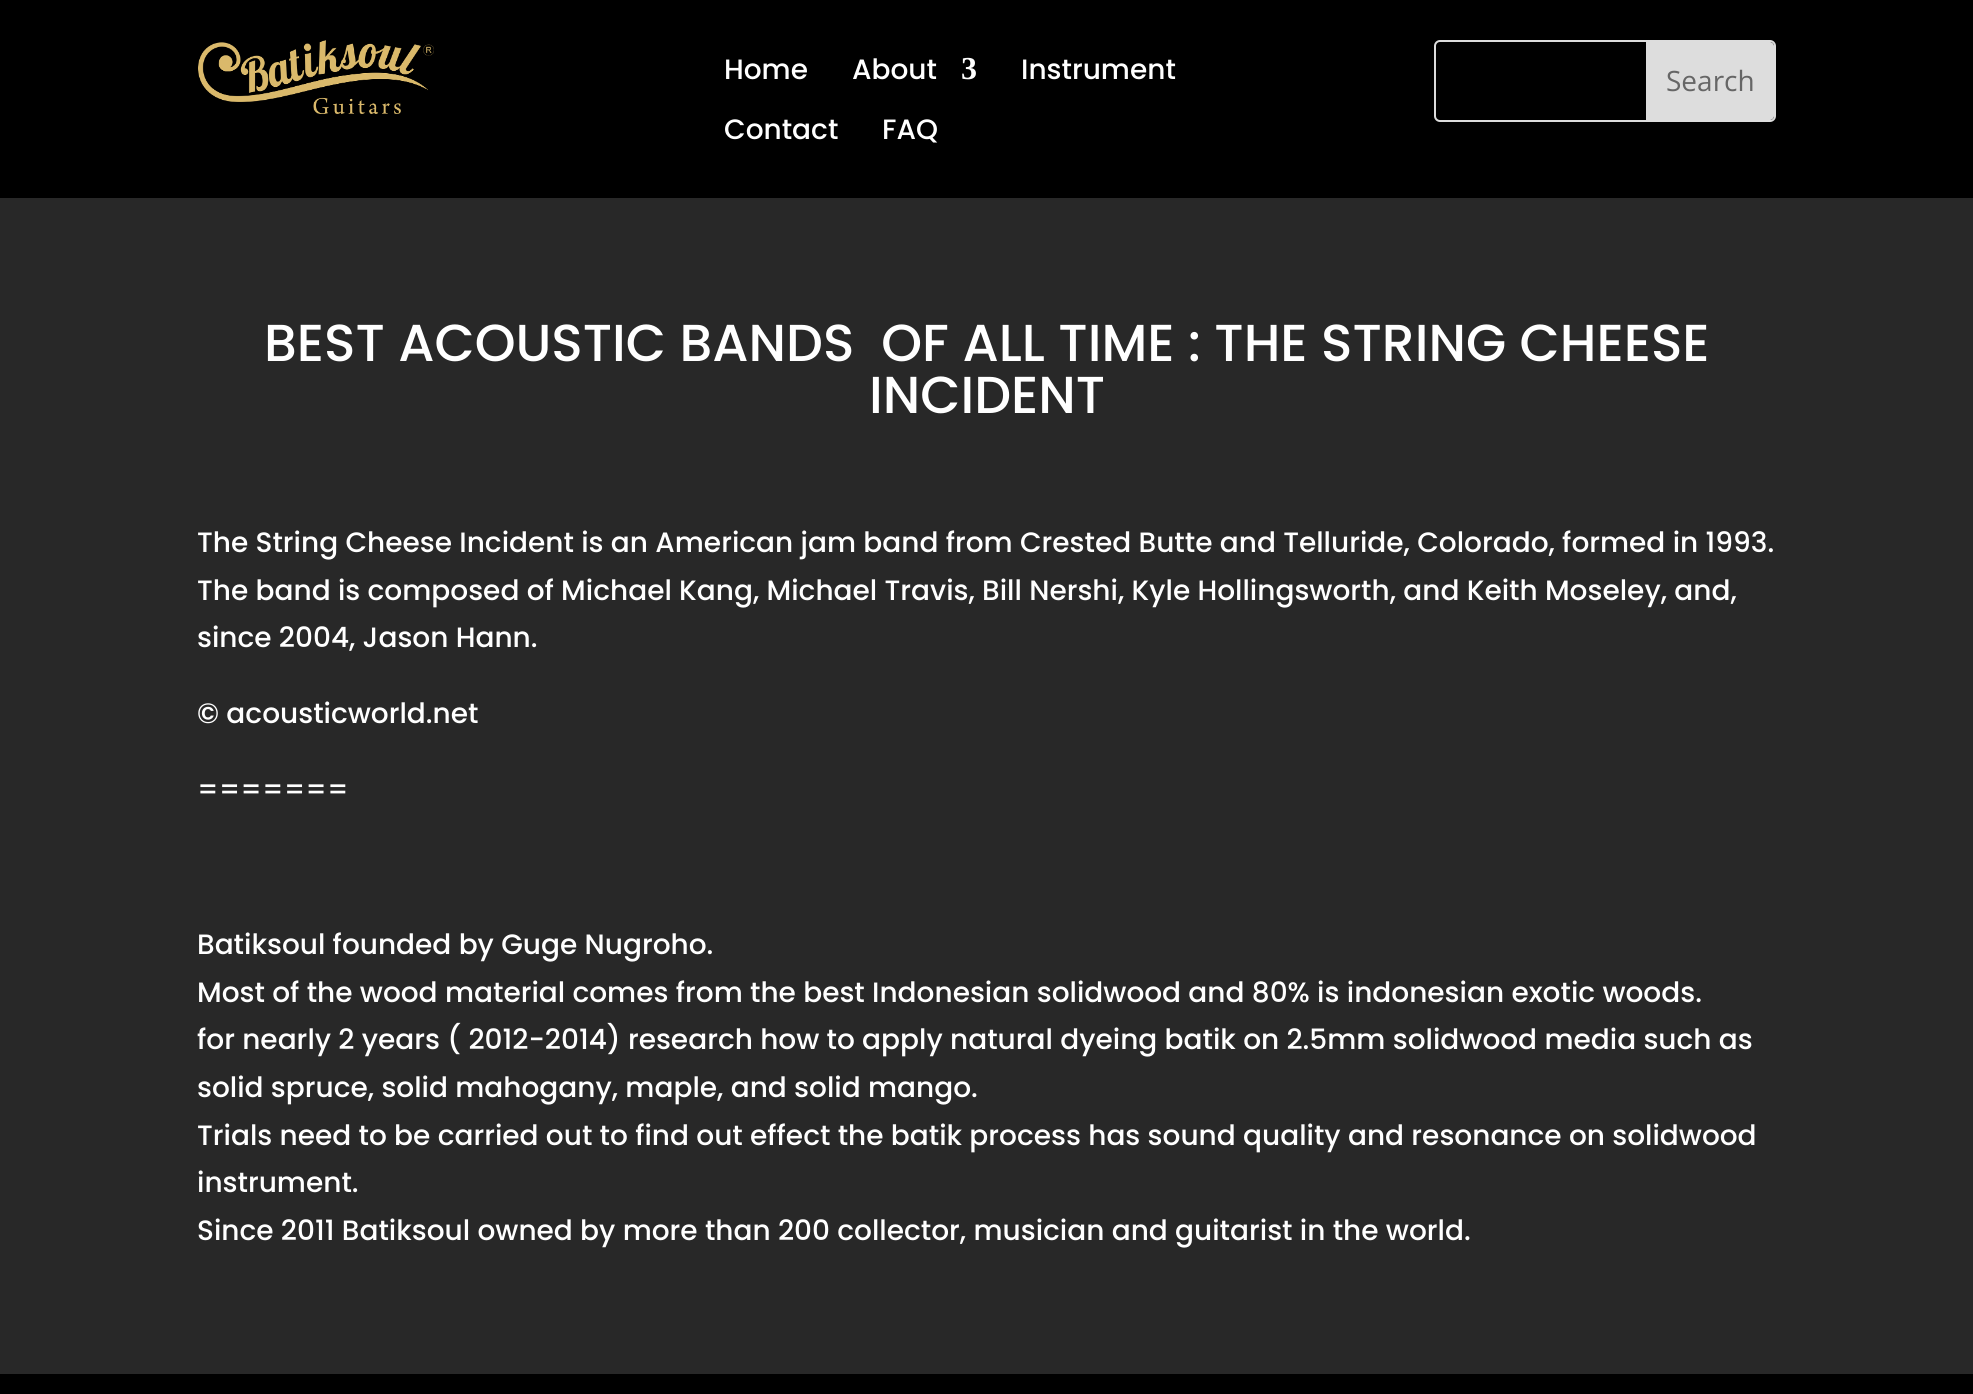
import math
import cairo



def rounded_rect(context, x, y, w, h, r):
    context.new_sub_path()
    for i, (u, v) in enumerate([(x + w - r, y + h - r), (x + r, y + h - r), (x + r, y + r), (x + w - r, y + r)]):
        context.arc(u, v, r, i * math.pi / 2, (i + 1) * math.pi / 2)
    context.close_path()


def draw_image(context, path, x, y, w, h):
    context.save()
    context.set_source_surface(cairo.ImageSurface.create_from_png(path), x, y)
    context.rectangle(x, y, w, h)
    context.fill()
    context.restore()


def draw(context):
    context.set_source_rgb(40 / 255, 40 / 255, 40 / 255)
    context.paint()
    context.set_source_rgb(0, 0, 0)
    context.rectangle(0, 0, 1973, 198)
    context.fill()
    draw_image(context, "images/1.png", 198, 40, 236, 74)
    rounded_rect(context, 1435, 41, 340, 80, 5)
    context.set_source_rgb(221 / 255, 221 / 255, 221 / 255)
    context.stroke()
    context.new_path()
    context.move_to(1646, 42)
    context.line_to(1770, 42)
    context.curve_to(1772, 42, 1774, 44, 1774, 46)
    context.line_to(1774, 116)
    context.curve_to(1774, 118, 1772, 120, 1770, 120)
    context.line_to(1646, 120)
    context.close_path()
    context.fill()
    context.set_source_rgb(0, 0, 0)
    context.rectangle(0, 1374, 1973, 20)
    context.fill()
    context.select_font_face("Poppins Medium")
    context.set_font_size(28)
    context.set_source_rgb(1, 1, 1)
    context.move_to(724, 79)
    context.show_text("Home")
    context.move_to(852, 79)
    context.show_text("About")
    context.select_font_face("Liberation Serif", cairo.FontSlant.NORMAL, cairo.FontWeight.BOLD)
    context.set_font_size(32)
    context.move_to(961, 79)
    context.show_text("3")
    context.select_font_face("Poppins Medium")
    context.set_font_size(28)
    context.move_to(1021, 79)
    context.show_text("Instrument")
    context.move_to(724, 139)
    context.show_text("Contact")
    context.move_to(882, 139)
    context.show_text("FAQ")
    context.select_font_face("Open Sans")
    context.set_source_rgb(102 / 255, 102 / 255, 102 / 255)
    context.move_to(1666, 91)
    context.show_text("Search")
    context.select_font_face("Poppins Medium")
    context.set_font_size(52)
    context.set_source_rgb(1, 1, 1)
    context.move_to(264, 361)
    context.show_text("BEST ACOUSTIC BANDS  OF ALL TIME : THE STRING CHEESE")
    context.move_to(869, 413)
    context.show_text("INCIDENT")
    context.set_font_size(28)
    context.move_to(197, 552)
    context.show_text("The String Cheese Incident is an American jam band from Crested Butte and Telluride, Colorado, formed in 1993.")
    context.move_to(197, 600)
    context.show_text("The band is composed of Michael Kang, Michael Travis, Bill Nershi, Kyle Hollingsworth, and Keith Moseley, and,")
    context.move_to(197, 647)
    context.show_text("since 2004, Jason Hann.")
    context.move_to(197, 723)
    context.show_text("© acousticworld.net")
    context.move_to(197, 799)
    context.show_text("=======")
    context.move_to(197, 954)
    context.show_text("Batiksoul founded by Guge Nugroho.")
    context.move_to(197, 1002)
    context.show_text("Most of the wood material comes from the best Indonesian solidwood and 80% is indonesian exotic woods.")
    context.move_to(197, 1049)
    context.show_text("for nearly 2 years ( 2012-2014) research how to apply natural dyeing batik on 2.5mm solidwood media such as")
    context.move_to(197, 1097)
    context.show_text("solid spruce, solid mahogany, maple, and solid mango.")
    context.move_to(197, 1145)
    context.show_text("Trials need to be carried out to find out effect the batik process has sound quality and resonance on solidwood")
    context.move_to(197, 1192)
    context.show_text("instrument.")
    context.move_to(197, 1240)
    context.show_text("Since 2011 Batiksoul owned by more than 200 collector, musician and guitarist in the world.")


surface = cairo.ImageSurface(cairo.Format.RGB24, 1973, 1394)
context = cairo.Context(surface)
options = cairo.FontOptions()
options.set_hint_metrics(cairo.HintMetrics.OFF)
options.set_hint_style(cairo.HintStyle.NONE)
context.set_font_options(options)
context.set_miter_limit(4)
draw(context)
surface.write_to_png("out.png")
